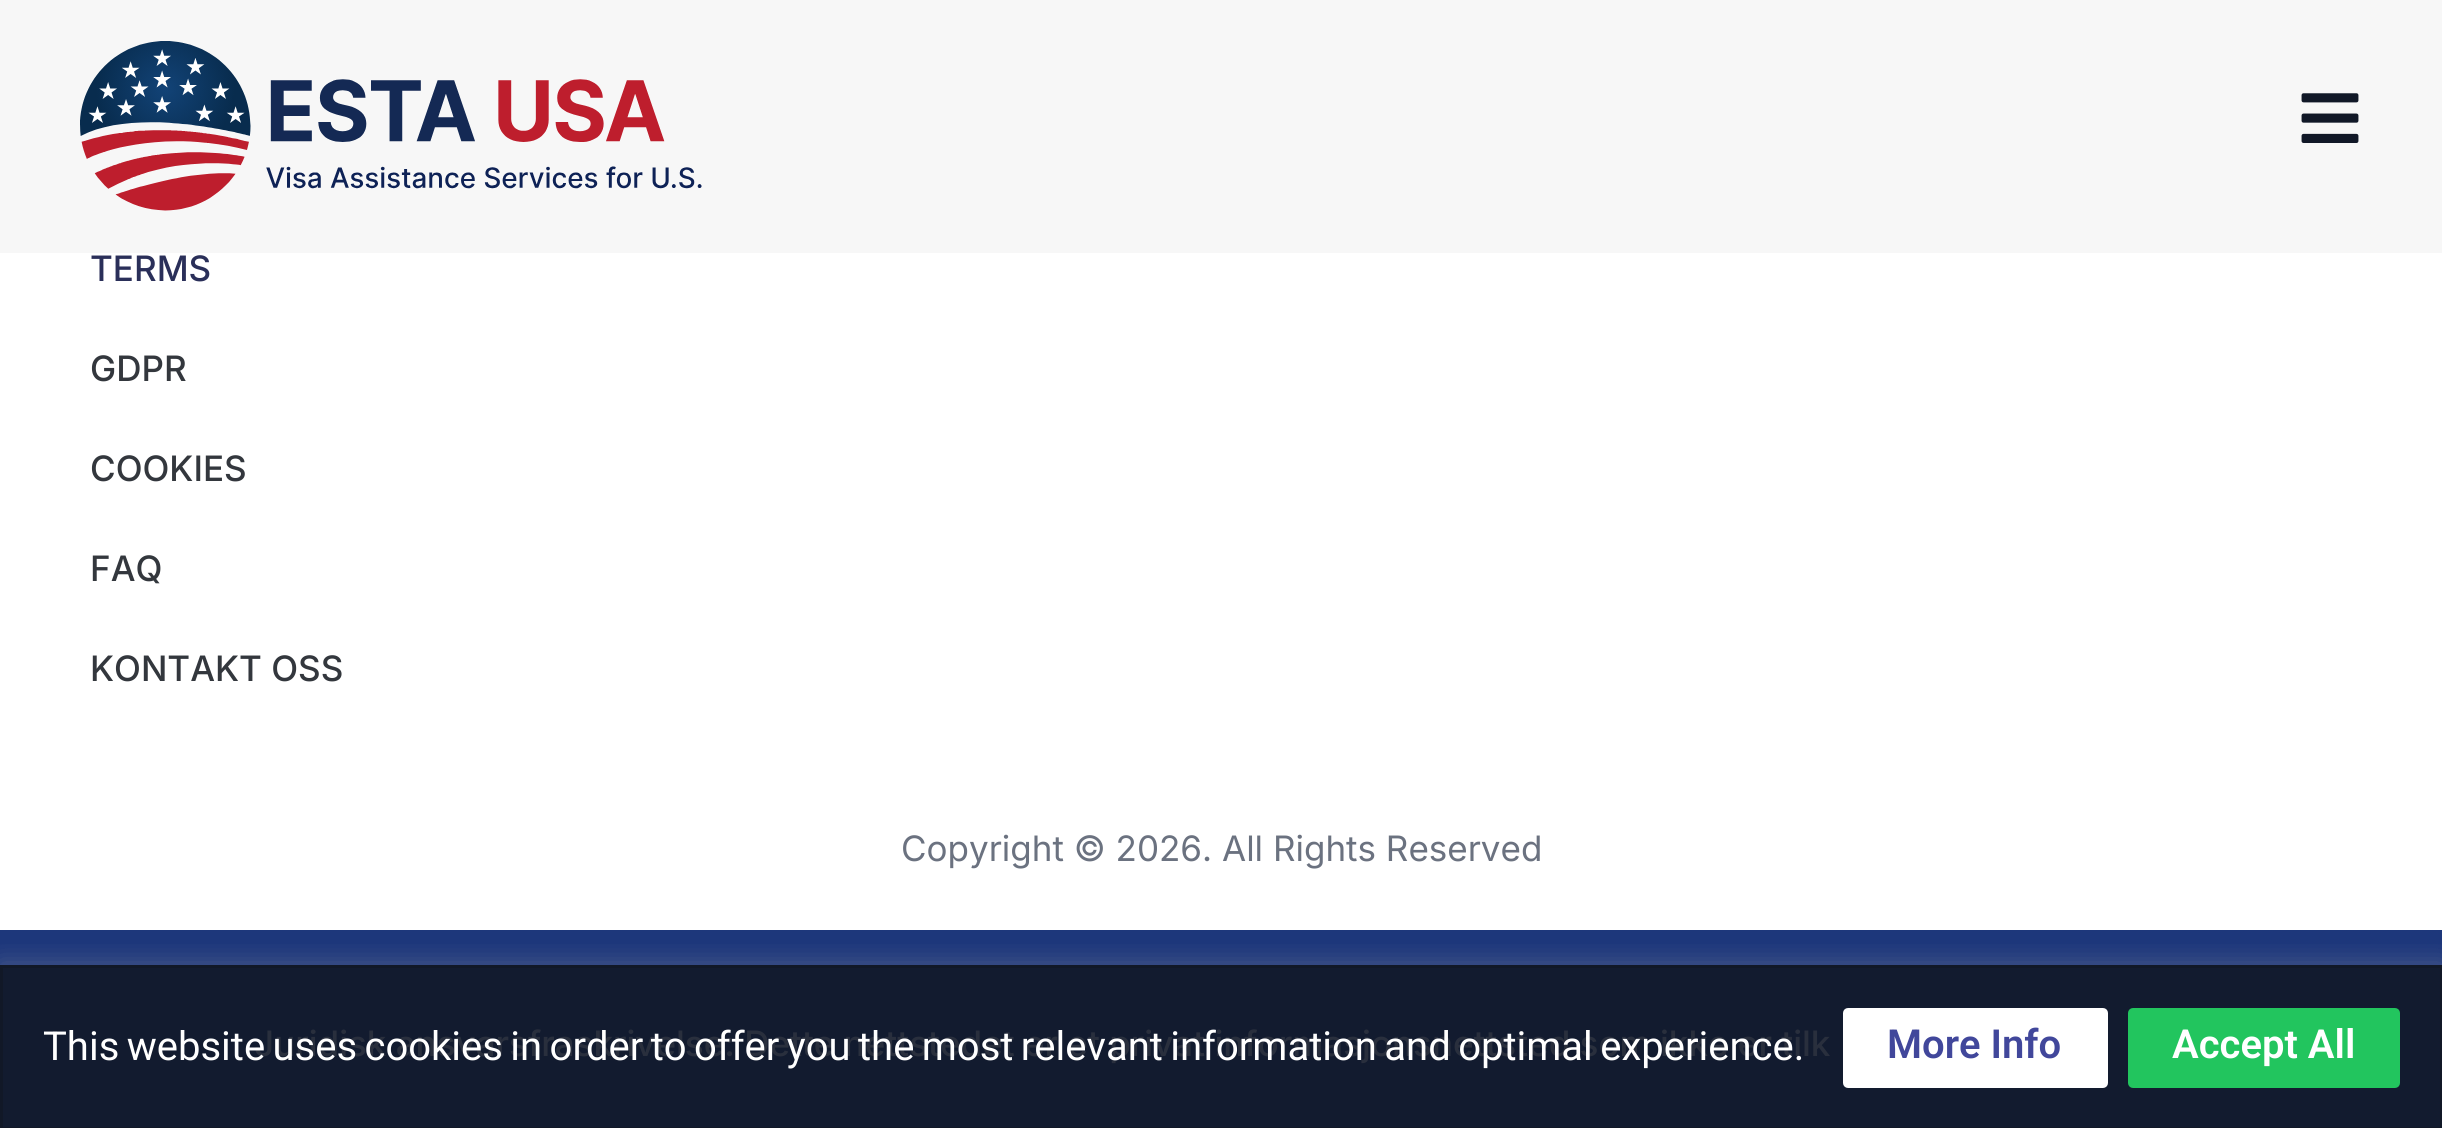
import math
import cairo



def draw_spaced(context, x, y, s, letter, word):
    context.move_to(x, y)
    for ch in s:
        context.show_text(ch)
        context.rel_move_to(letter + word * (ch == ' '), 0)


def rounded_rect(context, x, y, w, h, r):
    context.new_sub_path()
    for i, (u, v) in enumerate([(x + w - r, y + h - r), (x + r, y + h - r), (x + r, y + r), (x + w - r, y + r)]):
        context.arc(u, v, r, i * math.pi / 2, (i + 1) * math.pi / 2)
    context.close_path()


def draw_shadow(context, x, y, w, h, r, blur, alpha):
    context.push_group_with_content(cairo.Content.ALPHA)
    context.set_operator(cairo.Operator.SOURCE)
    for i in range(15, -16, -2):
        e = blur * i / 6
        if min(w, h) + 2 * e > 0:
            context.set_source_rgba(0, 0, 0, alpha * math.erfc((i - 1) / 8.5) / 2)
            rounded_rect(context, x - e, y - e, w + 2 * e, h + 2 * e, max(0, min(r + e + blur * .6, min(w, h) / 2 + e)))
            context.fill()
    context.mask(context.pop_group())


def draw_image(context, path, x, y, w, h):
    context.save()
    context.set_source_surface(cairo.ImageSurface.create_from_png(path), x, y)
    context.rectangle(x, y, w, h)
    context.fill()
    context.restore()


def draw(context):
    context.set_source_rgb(1, 1, 1)
    context.paint()
    context.set_source_rgb(247 / 255, 247 / 255, 247 / 255)
    context.rectangle(0, 0, 2442, 253)
    context.fill()
    draw_image(context, "images/1.png", 80, 41, 622, 170)
    draw_image(context, "images/2.png", 2301, 93, 58, 50)
    context.set_source_rgb(29 / 255, 55 / 255, 123 / 255)
    context.rectangle(0, 930, 2442, 35)
    context.fill()
    context.set_source_rgb(18 / 255, 27 / 255, 47 / 255)
    context.rectangle(3, 968, 2437, 159)
    context.fill()
    context.save()
    context.rectangle(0, 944, 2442, 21)
    context.clip()
    context.set_source_rgb(172 / 255, 171 / 255, 171 / 255)
    draw_shadow(context, 0, 963, 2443, 165, 0, 12.5, 0.3)
    context.restore()
    context.rectangle(1.5, 966.5, 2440, 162)
    context.set_source_rgb(17 / 255, 24 / 255, 39 / 255)
    context.set_line_width(3)
    context.stroke()
    context.set_source_rgb(1, 1, 1)
    rounded_rect(context, 1845.5, 1010.5, 260, 75, 2.5)
    context.fill_preserve()
    context.set_line_width(5)
    context.stroke()
    context.set_source_rgb(34 / 255, 197 / 255, 94 / 255)
    rounded_rect(context, 2130.5, 1010.5, 267, 75, 2.5)
    context.fill_preserve()
    context.stroke()
    context.select_font_face("Inter Medium")
    context.set_font_size(35)
    context.set_source_rgb(42 / 255, 47 / 255, 89 / 255)
    context.move_to(90, 281)
    context.show_text("TERMS")
    context.set_source_rgb(51 / 255, 55 / 255, 61 / 255)
    context.move_to(90, 381)
    context.show_text("GDPR")
    context.move_to(90, 481)
    context.show_text("COOKIES")
    context.move_to(90, 581)
    context.show_text("FAQ")
    context.move_to(90, 681)
    context.show_text("KONTAKT OSS")
    context.select_font_face("Inter")
    context.set_source_rgb(107 / 255, 114 / 255, 128 / 255)
    context.move_to(901, 861)
    context.show_text("Copyright © 2026. All Rights Reserved")
    context.select_font_face("Inter Medium")
    context.set_source_rgb(41 / 255, 47 / 255, 61 / 255)
    context.move_to(254, 1056)
    context.show_text("Juridisk ansvarsfraskrivelse: Dette nettstedet er et privat informasjonsnettsted som ikke er tilk")
    context.select_font_face("Roboto")
    context.set_font_size(40)
    context.set_source_rgb(1, 1, 1)
    draw_spaced(context, 43, 1060, "This website uses cookies in order to offer you the most relevant information and optimal experience.", 0, -2.5)
    context.select_font_face("Roboto SemiBold")
    context.set_source_rgb(65 / 255, 71 / 255, 155 / 255)
    context.move_to(1887, 1058)
    context.show_text("More Info")
    context.set_source_rgb(1, 1, 1)
    context.move_to(2172, 1058)
    context.show_text("Accept All")


surface = cairo.ImageSurface(cairo.Format.RGB24, 2442, 1128)
context = cairo.Context(surface)
options = cairo.FontOptions()
options.set_hint_metrics(cairo.HintMetrics.OFF)
options.set_hint_style(cairo.HintStyle.NONE)
context.set_font_options(options)
context.set_miter_limit(4)
draw(context)
surface.write_to_png("out.png")
